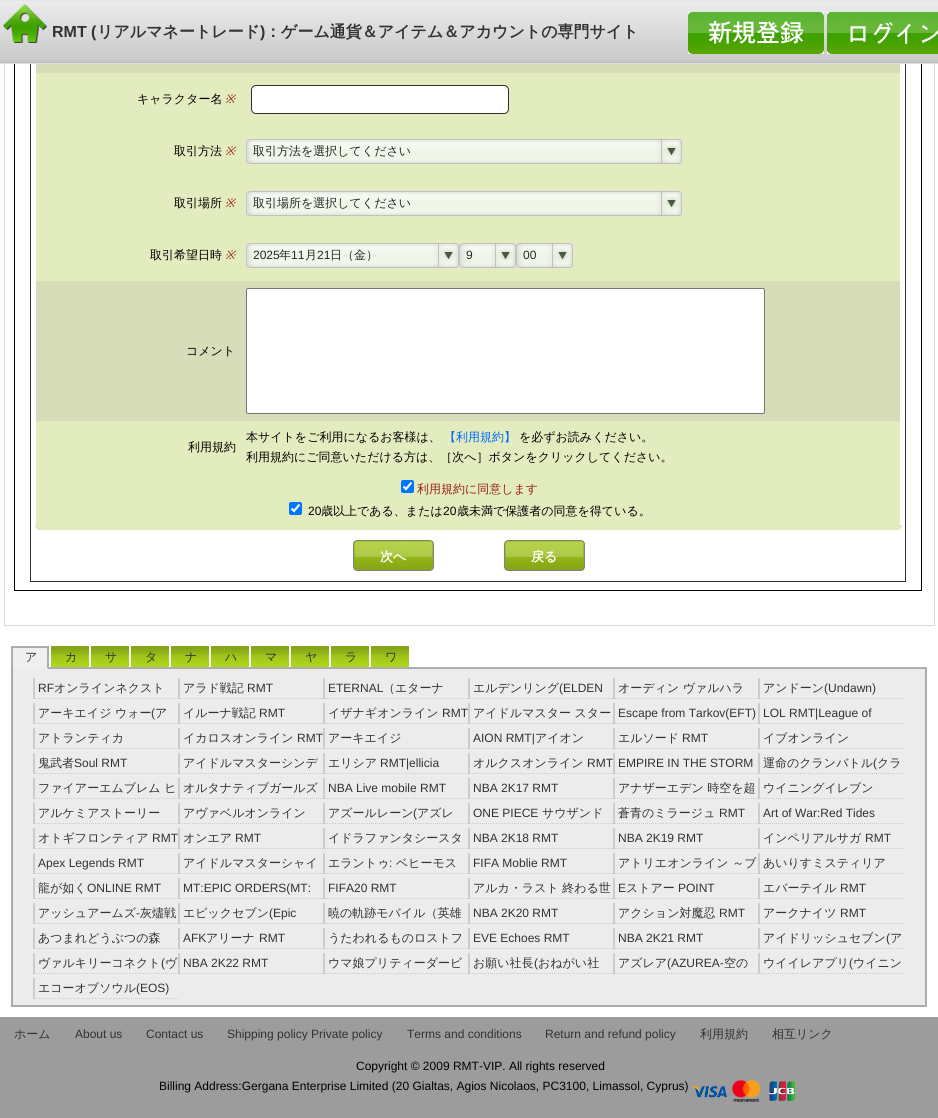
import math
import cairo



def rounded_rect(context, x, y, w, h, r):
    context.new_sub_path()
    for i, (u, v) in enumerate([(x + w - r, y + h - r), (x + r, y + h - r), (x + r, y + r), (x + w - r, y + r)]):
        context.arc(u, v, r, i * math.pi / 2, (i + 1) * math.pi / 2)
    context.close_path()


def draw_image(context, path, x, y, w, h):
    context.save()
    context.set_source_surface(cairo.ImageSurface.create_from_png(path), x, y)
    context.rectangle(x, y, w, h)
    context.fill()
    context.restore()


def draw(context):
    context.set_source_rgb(1, 1, 1)
    context.paint()
    context.rectangle(4.5, -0.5, 930, 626)
    context.set_source_rgb(216 / 255, 216 / 255, 216 / 255)
    context.set_line_width(1)
    context.stroke()
    context.rectangle(14.5, -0.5, 907, 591)
    context.set_source_rgb(0, 0, 0)
    context.stroke()
    context.rectangle(30.5, -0.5, 875, 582)
    context.set_source_rgb(50 / 255, 50 / 255, 50 / 255)
    context.stroke()
    draw_image(context, "images/1.png", 0, 0, 938, 64)
    draw_image(context, "images/2.png", 3, 4, 44, 39)
    draw_image(context, "images/3.png", 688, 12, 136, 42)
    draw_image(context, "images/4.png", 827, 12, 111, 42)
    context.set_source_rgb(214 / 255, 221 / 255, 184 / 255)
    context.rectangle(36, 64, 864, 9)
    context.fill()
    context.set_source_rgb(226 / 255, 236 / 255, 190 / 255)
    context.rectangle(36, 73, 864, 208)
    context.fill()
    context.set_source_rgb(1, 1, 1)
    rounded_rect(context, 251.5, 85.5, 257, 28, 4.5)
    context.fill_preserve()
    context.set_source_rgb(50 / 255, 50 / 255, 50 / 255)
    context.stroke()
    draw_image(context, "images/5.png", 656, 139, 26, 25)
    draw_image(context, "images/6.png", 246, 139, 410, 25)
    draw_image(context, "images/5.png", 656, 191, 26, 25)
    draw_image(context, "images/6.png", 246, 191, 410, 25)
    draw_image(context, "images/5.png", 433, 243, 26, 25)
    draw_image(context, "images/7.png", 246, 243, 187, 25)
    draw_image(context, "images/5.png", 490, 243, 26, 25)
    draw_image(context, "images/8.png", 459, 243, 31, 25)
    draw_image(context, "images/5.png", 547, 243, 26, 25)
    draw_image(context, "images/8.png", 516, 243, 31, 25)
    context.set_source_rgb(214 / 255, 221 / 255, 184 / 255)
    context.rectangle(36, 281, 864, 140)
    context.fill()
    context.set_source_rgb(1, 1, 1)
    rounded_rect(context, 246.5, 288.5, 518, 125, 1.5)
    context.fill_preserve()
    context.set_source_rgb(118 / 255, 118 / 255, 118 / 255)
    context.stroke()
    context.set_source_rgb(226 / 255, 236 / 255, 190 / 255)
    context.rectangle(36, 421, 864, 104)
    context.fill()
    context.set_source_rgb(0, 117 / 255, 1)
    rounded_rect(context, 401, 480, 13, 13, 2)
    context.fill()
    context.new_path()
    context.move_to(403.5, 486.5)
    context.line_to(406, 489)
    context.line_to(411.5, 482.5)
    context.set_source_rgb(1, 1, 1)
    context.set_line_width(2.1)
    context.stroke()
    context.set_source_rgb(0, 117 / 255, 1)
    rounded_rect(context, 289, 502, 13, 13, 2)
    context.fill()
    context.new_path()
    context.move_to(291.5, 508.5)
    context.line_to(294, 511)
    context.line_to(299.5, 504.5)
    context.set_source_rgb(1, 1, 1)
    context.stroke()
    draw_image(context, "images/9.png", 35, 525, 867, 5)
    draw_image(context, "images/10.png", 353, 540, 81, 31)
    draw_image(context, "images/10.png", 504, 540, 81, 31)
    draw_image(context, "images/11.png", 49, 646, 878, 23)
    draw_image(context, "images/12.png", 11, 646, 38, 23)
    draw_image(context, "images/13.png", 51, 646, 38, 22)
    draw_image(context, "images/13.png", 91, 646, 38, 22)
    draw_image(context, "images/13.png", 131, 646, 38, 22)
    draw_image(context, "images/13.png", 171, 646, 38, 22)
    draw_image(context, "images/13.png", 211, 646, 38, 22)
    draw_image(context, "images/13.png", 251, 646, 38, 22)
    draw_image(context, "images/13.png", 291, 646, 38, 22)
    draw_image(context, "images/13.png", 331, 646, 38, 22)
    draw_image(context, "images/13.png", 371, 646, 38, 22)
    context.set_source_rgb(236 / 255, 236 / 255, 236 / 255)
    context.rectangle(13, 669, 912, 336)
    context.fill()
    context.set_source_rgb(171 / 255, 171 / 255, 171 / 255)
    context.rectangle(925, 669, 2, 338)
    context.fill()
    context.rectangle(11, 1005, 916, 2)
    context.fill()
    context.rectangle(11, 669, 2, 338)
    context.fill()
    context.new_path()
    context.move_to(33, 698.5)
    context.line_to(178, 698.5)
    context.set_source_rgb(204 / 255, 204 / 255, 204 / 255)
    context.set_line_width(1)
    context.set_dash([1, 1])
    context.stroke()
    context.rectangle(33, 678, 2, 21)
    context.fill()
    context.new_path()
    context.move_to(178, 698.5)
    context.line_to(323, 698.5)
    context.stroke()
    context.rectangle(178, 678, 2, 21)
    context.fill()
    context.new_path()
    context.move_to(323, 698.5)
    context.line_to(468, 698.5)
    context.stroke()
    context.rectangle(323, 678, 2, 21)
    context.fill()
    context.new_path()
    context.move_to(468, 698.5)
    context.line_to(613, 698.5)
    context.stroke()
    context.rectangle(468, 678, 2, 21)
    context.fill()
    context.new_path()
    context.move_to(613, 698.5)
    context.line_to(758, 698.5)
    context.stroke()
    context.rectangle(613, 678, 2, 21)
    context.fill()
    context.new_path()
    context.move_to(758, 698.5)
    context.line_to(903, 698.5)
    context.stroke()
    context.rectangle(758, 678, 2, 21)
    context.fill()
    context.new_path()
    context.move_to(33, 723.5)
    context.line_to(178, 723.5)
    context.stroke()
    context.rectangle(33, 703, 2, 21)
    context.fill()
    context.new_path()
    context.move_to(178, 723.5)
    context.line_to(323, 723.5)
    context.stroke()
    context.rectangle(178, 703, 2, 21)
    context.fill()
    context.new_path()
    context.move_to(323, 723.5)
    context.line_to(468, 723.5)
    context.stroke()
    context.rectangle(323, 703, 2, 21)
    context.fill()
    context.new_path()
    context.move_to(468, 723.5)
    context.line_to(613, 723.5)
    context.stroke()
    context.rectangle(468, 703, 2, 21)
    context.fill()
    context.new_path()
    context.move_to(613, 723.5)
    context.line_to(758, 723.5)
    context.stroke()
    context.rectangle(613, 703, 2, 21)
    context.fill()
    context.new_path()
    context.move_to(758, 723.5)
    context.line_to(903, 723.5)
    context.stroke()
    context.rectangle(758, 703, 2, 21)
    context.fill()
    context.new_path()
    context.move_to(33, 748.5)
    context.line_to(178, 748.5)
    context.stroke()
    context.rectangle(33, 728, 2, 21)
    context.fill()
    context.new_path()
    context.move_to(178, 748.5)
    context.line_to(323, 748.5)
    context.stroke()
    context.rectangle(178, 728, 2, 21)
    context.fill()
    context.new_path()
    context.move_to(323, 748.5)
    context.line_to(468, 748.5)
    context.stroke()
    context.rectangle(323, 728, 2, 21)
    context.fill()
    context.new_path()
    context.move_to(468, 748.5)
    context.line_to(613, 748.5)
    context.stroke()
    context.rectangle(468, 728, 2, 21)
    context.fill()
    context.new_path()
    context.move_to(613, 748.5)
    context.line_to(758, 748.5)
    context.stroke()
    context.rectangle(613, 728, 2, 21)
    context.fill()
    context.new_path()
    context.move_to(758, 748.5)
    context.line_to(903, 748.5)
    context.stroke()
    context.rectangle(758, 728, 2, 21)
    context.fill()
    context.new_path()
    context.move_to(33, 773.5)
    context.line_to(178, 773.5)
    context.stroke()
    context.rectangle(33, 753, 2, 21)
    context.fill()
    context.new_path()
    context.move_to(178, 773.5)
    context.line_to(323, 773.5)
    context.stroke()
    context.rectangle(178, 753, 2, 21)
    context.fill()
    context.new_path()
    context.move_to(323, 773.5)
    context.line_to(468, 773.5)
    context.stroke()
    context.rectangle(323, 753, 2, 21)
    context.fill()
    context.new_path()
    context.move_to(468, 773.5)
    context.line_to(613, 773.5)
    context.stroke()
    context.rectangle(468, 753, 2, 21)
    context.fill()
    context.new_path()
    context.move_to(613, 773.5)
    context.line_to(758, 773.5)
    context.stroke()
    context.rectangle(613, 753, 2, 21)
    context.fill()
    context.new_path()
    context.move_to(758, 773.5)
    context.line_to(903, 773.5)
    context.stroke()
    context.rectangle(758, 753, 2, 21)
    context.fill()
    context.new_path()
    context.move_to(33, 798.5)
    context.line_to(178, 798.5)
    context.stroke()
    context.rectangle(33, 778, 2, 21)
    context.fill()
    context.new_path()
    context.move_to(178, 798.5)
    context.line_to(323, 798.5)
    context.stroke()
    context.rectangle(178, 778, 2, 21)
    context.fill()
    context.new_path()
    context.move_to(323, 798.5)
    context.line_to(468, 798.5)
    context.stroke()
    context.rectangle(323, 778, 2, 21)
    context.fill()
    context.new_path()
    context.move_to(468, 798.5)
    context.line_to(613, 798.5)
    context.stroke()
    context.rectangle(468, 778, 2, 21)
    context.fill()
    context.new_path()
    context.move_to(613, 798.5)
    context.line_to(758, 798.5)
    context.stroke()
    context.rectangle(613, 778, 2, 21)
    context.fill()
    context.new_path()
    context.move_to(758, 798.5)
    context.line_to(903, 798.5)
    context.stroke()
    context.rectangle(758, 778, 2, 21)
    context.fill()
    context.new_path()
    context.move_to(33, 823.5)
    context.line_to(178, 823.5)
    context.stroke()
    context.rectangle(33, 803, 2, 21)
    context.fill()
    context.new_path()
    context.move_to(178, 823.5)
    context.line_to(323, 823.5)
    context.stroke()
    context.rectangle(178, 803, 2, 21)
    context.fill()
    context.new_path()
    context.move_to(323, 823.5)
    context.line_to(468, 823.5)
    context.stroke()
    context.rectangle(323, 803, 2, 21)
    context.fill()
    context.new_path()
    context.move_to(468, 823.5)
    context.line_to(613, 823.5)
    context.stroke()
    context.rectangle(468, 803, 2, 21)
    context.fill()
    context.new_path()
    context.move_to(613, 823.5)
    context.line_to(758, 823.5)
    context.stroke()
    context.rectangle(613, 803, 2, 21)
    context.fill()
    context.new_path()
    context.move_to(758, 823.5)
    context.line_to(903, 823.5)
    context.stroke()
    context.rectangle(758, 803, 2, 21)
    context.fill()
    context.new_path()
    context.move_to(33, 848.5)
    context.line_to(178, 848.5)
    context.stroke()
    context.rectangle(33, 828, 2, 21)
    context.fill()
    context.new_path()
    context.move_to(178, 848.5)
    context.line_to(323, 848.5)
    context.stroke()
    context.rectangle(178, 828, 2, 21)
    context.fill()
    context.new_path()
    context.move_to(323, 848.5)
    context.line_to(468, 848.5)
    context.stroke()
    context.rectangle(323, 828, 2, 21)
    context.fill()
    context.new_path()
    context.move_to(468, 848.5)
    context.line_to(613, 848.5)
    context.stroke()
    context.rectangle(468, 828, 2, 21)
    context.fill()
    context.new_path()
    context.move_to(613, 848.5)
    context.line_to(758, 848.5)
    context.stroke()
    context.rectangle(613, 828, 2, 21)
    context.fill()
    context.new_path()
    context.move_to(758, 848.5)
    context.line_to(903, 848.5)
    context.stroke()
    context.rectangle(758, 828, 2, 21)
    context.fill()
    context.new_path()
    context.move_to(33, 873.5)
    context.line_to(178, 873.5)
    context.stroke()
    context.rectangle(33, 853, 2, 21)
    context.fill()
    context.new_path()
    context.move_to(178, 873.5)
    context.line_to(323, 873.5)
    context.stroke()
    context.rectangle(178, 853, 2, 21)
    context.fill()
    context.new_path()
    context.move_to(323, 873.5)
    context.line_to(468, 873.5)
    context.stroke()
    context.rectangle(323, 853, 2, 21)
    context.fill()
    context.new_path()
    context.move_to(468, 873.5)
    context.line_to(613, 873.5)
    context.stroke()
    context.rectangle(468, 853, 2, 21)
    context.fill()
    context.new_path()
    context.move_to(613, 873.5)
    context.line_to(758, 873.5)
    context.stroke()
    context.rectangle(613, 853, 2, 21)
    context.fill()
    context.new_path()
    context.move_to(758, 873.5)
    context.line_to(903, 873.5)
    context.stroke()
    context.rectangle(758, 853, 2, 21)
    context.fill()
    context.new_path()
    context.move_to(33, 898.5)
    context.line_to(178, 898.5)
    context.stroke()
    context.rectangle(33, 878, 2, 21)
    context.fill()
    context.new_path()
    context.move_to(178, 898.5)
    context.line_to(323, 898.5)
    context.stroke()
    context.rectangle(178, 878, 2, 21)
    context.fill()
    context.new_path()
    context.move_to(323, 898.5)
    context.line_to(468, 898.5)
    context.stroke()
    context.rectangle(323, 878, 2, 21)
    context.fill()
    context.new_path()
    context.move_to(468, 898.5)
    context.line_to(613, 898.5)
    context.stroke()
    context.rectangle(468, 878, 2, 21)
    context.fill()
    context.new_path()
    context.move_to(613, 898.5)
    context.line_to(758, 898.5)
    context.stroke()
    context.rectangle(613, 878, 2, 21)
    context.fill()
    context.new_path()
    context.move_to(758, 898.5)
    context.line_to(903, 898.5)
    context.stroke()
    context.rectangle(758, 878, 2, 21)
    context.fill()
    context.new_path()
    context.move_to(33, 923.5)
    context.line_to(178, 923.5)
    context.stroke()
    context.rectangle(33, 903, 2, 21)
    context.fill()
    context.new_path()
    context.move_to(178, 923.5)
    context.line_to(323, 923.5)
    context.stroke()
    context.rectangle(178, 903, 2, 21)
    context.fill()
    context.new_path()
    context.move_to(323, 923.5)
    context.line_to(468, 923.5)
    context.stroke()
    context.rectangle(323, 903, 2, 21)
    context.fill()
    context.new_path()
    context.move_to(468, 923.5)
    context.line_to(613, 923.5)
    context.stroke()
    context.rectangle(468, 903, 2, 21)
    context.fill()
    context.new_path()
    context.move_to(613, 923.5)
    context.line_to(758, 923.5)
    context.stroke()
    context.rectangle(613, 903, 2, 21)
    context.fill()
    context.new_path()
    context.move_to(758, 923.5)
    context.line_to(903, 923.5)
    context.stroke()
    context.rectangle(758, 903, 2, 21)
    context.fill()
    context.new_path()
    context.move_to(33, 948.5)
    context.line_to(178, 948.5)
    context.stroke()
    context.rectangle(33, 928, 2, 21)
    context.fill()
    context.new_path()
    context.move_to(178, 948.5)
    context.line_to(323, 948.5)
    context.stroke()
    context.rectangle(178, 928, 2, 21)
    context.fill()
    context.new_path()
    context.move_to(323, 948.5)
    context.line_to(468, 948.5)
    context.stroke()
    context.rectangle(323, 928, 2, 21)
    context.fill()
    context.new_path()
    context.move_to(468, 948.5)
    context.line_to(613, 948.5)
    context.stroke()
    context.rectangle(468, 928, 2, 21)
    context.fill()
    context.new_path()
    context.move_to(613, 948.5)
    context.line_to(758, 948.5)
    context.stroke()
    context.rectangle(613, 928, 2, 21)
    context.fill()
    context.new_path()
    context.move_to(758, 948.5)
    context.line_to(903, 948.5)
    context.stroke()
    context.rectangle(758, 928, 2, 21)
    context.fill()
    context.new_path()
    context.move_to(33, 973.5)
    context.line_to(178, 973.5)
    context.stroke()
    context.rectangle(33, 953, 2, 21)
    context.fill()
    context.new_path()
    context.move_to(178, 973.5)
    context.line_to(323, 973.5)
    context.stroke()
    context.rectangle(178, 953, 2, 21)
    context.fill()
    context.new_path()
    context.move_to(323, 973.5)
    context.line_to(468, 973.5)
    context.stroke()
    context.rectangle(323, 953, 2, 21)
    context.fill()
    context.new_path()
    context.move_to(468, 973.5)
    context.line_to(613, 973.5)
    context.stroke()
    context.rectangle(468, 953, 2, 21)
    context.fill()
    context.new_path()
    context.move_to(613, 973.5)
    context.line_to(758, 973.5)
    context.stroke()
    context.rectangle(613, 953, 2, 21)
    context.fill()
    context.new_path()
    context.move_to(758, 973.5)
    context.line_to(903, 973.5)
    context.stroke()
    context.rectangle(758, 953, 2, 21)
    context.fill()
    context.new_path()
    context.move_to(33, 998.5)
    context.line_to(178, 998.5)
    context.stroke()
    context.rectangle(33, 978, 2, 21)
    context.fill()
    context.set_source_rgb(156 / 255, 156 / 255, 156 / 255)
    context.rectangle(0, 1017, 938, 101)
    context.fill()
    draw_image(context, "images/14.png", 692, 1086, 35, 12)
    draw_image(context, "images/15.png", 731, 1079, 30, 24)
    draw_image(context, "images/16.png", 769, 1081, 27, 20)
    context.select_font_face("Liberation Sans", cairo.FontSlant.NORMAL, cairo.FontWeight.BOLD)
    context.set_font_size(16)
    context.set_source_rgb(50 / 255, 50 / 255, 50 / 255)
    context.move_to(52, 37)
    context.show_text("RMT (")
    context.select_font_face("WenQuanYi Zen Hei", cairo.FontSlant.NORMAL, cairo.FontWeight.BOLD)
    context.move_to(97, 37)
    context.show_text("リアルマネートレード")
    context.select_font_face("Liberation Sans", cairo.FontSlant.NORMAL, cairo.FontWeight.BOLD)
    context.move_to(260, 37)
    context.show_text(")")
    context.select_font_face("WenQuanYi Zen Hei", cairo.FontSlant.NORMAL, cairo.FontWeight.BOLD)
    context.move_to(265, 37)
    context.show_text("：ゲーム通貨＆アイテム＆アカウントの専門サイト")
    context.select_font_face("WenQuanYi Zen Hei Medium")
    context.set_font_size(12)
    context.set_source_rgb(0, 0, 0)
    context.move_to(137, 103)
    context.show_text("キャラクター名")
    context.select_font_face("Noto Sans", cairo.FontSlant.ITALIC)
    context.set_source_rgb(154 / 255, 30 / 255, 24 / 255)
    context.move_to(225, 103)
    context.show_text("※")
    context.select_font_face("WenQuanYi Zen Hei Medium")
    context.set_source_rgb(0, 0, 0)
    context.move_to(174, 155)
    context.show_text("取引方法")
    context.select_font_face("Noto Sans", cairo.FontSlant.ITALIC)
    context.set_source_rgb(154 / 255, 30 / 255, 24 / 255)
    context.move_to(225, 155)
    context.show_text("※")
    context.select_font_face("WenQuanYi Zen Hei Medium")
    context.set_source_rgb(38 / 255, 38 / 255, 38 / 255)
    context.move_to(253, 155)
    context.show_text("取引方法を選択してください")
    context.set_source_rgb(0, 0, 0)
    context.move_to(174, 207)
    context.show_text("取引場所")
    context.select_font_face("Noto Sans", cairo.FontSlant.ITALIC)
    context.set_source_rgb(154 / 255, 30 / 255, 24 / 255)
    context.move_to(225, 207)
    context.show_text("※")
    context.select_font_face("WenQuanYi Zen Hei Medium")
    context.set_source_rgb(38 / 255, 38 / 255, 38 / 255)
    context.move_to(253, 207)
    context.show_text("取引場所を選択してください")
    context.set_source_rgb(0, 0, 0)
    context.move_to(150, 259)
    context.show_text("取引希望日時")
    context.select_font_face("Noto Sans", cairo.FontSlant.ITALIC)
    context.set_source_rgb(154 / 255, 30 / 255, 24 / 255)
    context.move_to(225, 259)
    context.show_text("※")
    context.select_font_face("Liberation Sans")
    context.set_source_rgb(38 / 255, 38 / 255, 38 / 255)
    context.move_to(253, 259)
    context.show_text("2025")
    context.select_font_face("WenQuanYi Zen Hei Medium")
    context.move_to(279, 259)
    context.show_text("年")
    context.select_font_face("Liberation Sans")
    context.move_to(291, 259)
    context.show_text("11")
    context.select_font_face("WenQuanYi Zen Hei Medium")
    context.move_to(305, 259)
    context.show_text("月")
    context.select_font_face("Liberation Sans")
    context.move_to(317, 259)
    context.show_text("21")
    context.select_font_face("WenQuanYi Zen Hei Medium")
    context.move_to(330, 259)
    context.show_text("日（金）")
    context.select_font_face("Liberation Sans")
    context.move_to(466, 259)
    context.show_text("9")
    context.move_to(523, 259)
    context.show_text("00")
    context.select_font_face("WenQuanYi Zen Hei Medium")
    context.set_source_rgb(0, 0, 0)
    context.move_to(186, 355)
    context.show_text("コメント")
    context.move_to(188, 451)
    context.show_text("利用規約")
    context.move_to(246, 441)
    context.show_text("本サイトをご利用になるお客様は、")
    context.set_source_rgb(0, 102 / 255, 1)
    context.move_to(444, 441)
    context.show_text("【利用規約】")
    context.set_source_rgb(0, 0, 0)
    context.move_to(519, 441)
    context.show_text("を必ずお読みください。")
    context.move_to(246, 461)
    context.show_text("利用規約にご同意いただける方は、［次へ］ボタンをクリックしてください。")
    context.set_source_rgb(154 / 255, 30 / 255, 24 / 255)
    context.move_to(417, 493)
    context.show_text("利用規約に同意します")
    context.select_font_face("Liberation Sans")
    context.set_source_rgb(0, 0, 0)
    context.move_to(308, 515)
    context.show_text("20")
    context.select_font_face("WenQuanYi Zen Hei Medium")
    context.move_to(321, 515)
    context.show_text("歳以上である、または")
    context.select_font_face("Liberation Sans")
    context.move_to(443, 515)
    context.show_text("20")
    context.select_font_face("WenQuanYi Zen Hei Medium")
    context.move_to(457, 515)
    context.show_text("歳未満で保護者の同意を得ている。")
    context.select_font_face("WenQuanYi Zen Hei", cairo.FontSlant.NORMAL, cairo.FontWeight.BOLD)
    context.set_font_size(13)
    context.set_source_rgb(1, 1, 1)
    context.move_to(380, 561)
    context.show_text("次へ")
    context.move_to(531, 561)
    context.show_text("戻る")
    context.select_font_face("WenQuanYi Zen Hei Medium")
    context.set_font_size(12)
    context.set_source_rgb(50 / 255, 50 / 255, 50 / 255)
    context.move_to(25, 661)
    context.show_text("ア")
    context.move_to(65, 661)
    context.show_text("カ")
    context.move_to(105, 661)
    context.show_text("サ")
    context.move_to(145, 661)
    context.show_text("タ")
    context.move_to(185, 661)
    context.show_text("ナ")
    context.move_to(225, 661)
    context.show_text("ハ")
    context.move_to(265, 661)
    context.show_text("マ")
    context.move_to(305, 661)
    context.show_text("ヤ")
    context.move_to(345, 661)
    context.show_text("ラ")
    context.move_to(385, 661)
    context.show_text("ワ")
    context.select_font_face("Liberation Sans")
    context.move_to(38, 692)
    context.show_text("RF")
    context.select_font_face("WenQuanYi Zen Hei Medium")
    context.move_to(54, 692)
    context.show_text("オンラインネクスト")
    context.move_to(183, 692)
    context.show_text("アラド戦記")
    context.select_font_face("Liberation Sans")
    context.move_to(247, 692)
    context.show_text("RMT")
    context.move_to(328, 692)
    context.show_text("ETERNAL")
    context.select_font_face("WenQuanYi Zen Hei Medium")
    context.move_to(383, 692)
    context.show_text("（エターナ")
    context.move_to(473, 692)
    context.show_text("エルデンリング")
    context.select_font_face("Liberation Sans")
    context.move_to(559, 692)
    context.show_text("(ELDEN")
    context.select_font_face("WenQuanYi Zen Hei Medium")
    context.move_to(618, 692)
    context.show_text("オーディン ヴァルハラ")
    context.move_to(763, 692)
    context.show_text("アンドーン")
    context.select_font_face("Liberation Sans")
    context.move_to(824, 692)
    context.show_text("(Undawn)")
    context.select_font_face("WenQuanYi Zen Hei Medium")
    context.move_to(38, 717)
    context.show_text("アーキエイジ ウォー")
    context.select_font_face("Liberation Sans")
    context.move_to(151, 717)
    context.show_text("(")
    context.select_font_face("WenQuanYi Zen Hei Medium")
    context.move_to(155, 717)
    context.show_text("ア")
    context.move_to(183, 717)
    context.show_text("イルーナ戦記")
    context.select_font_face("Liberation Sans")
    context.move_to(259, 717)
    context.show_text("RMT")
    context.select_font_face("WenQuanYi Zen Hei Medium")
    context.move_to(328, 717)
    context.show_text("イザナギオンライン")
    context.select_font_face("Liberation Sans")
    context.move_to(442, 717)
    context.show_text("RMT")
    context.select_font_face("WenQuanYi Zen Hei Medium")
    context.move_to(473, 717)
    context.show_text("アイドルマスター スター")
    context.select_font_face("Liberation Sans")
    context.move_to(618, 717)
    context.show_text("Escape from Tarkov(EFT)")
    context.move_to(763, 717)
    context.show_text("LOL RMT|League of")
    context.select_font_face("WenQuanYi Zen Hei Medium")
    context.move_to(38, 742)
    context.show_text("アトランティカ")
    context.move_to(183, 742)
    context.show_text("イカロスオンライン")
    context.select_font_face("Liberation Sans")
    context.move_to(297, 742)
    context.show_text("RMT")
    context.select_font_face("WenQuanYi Zen Hei Medium")
    context.move_to(328, 742)
    context.show_text("アーキエイジ")
    context.select_font_face("Liberation Sans")
    context.move_to(473, 742)
    context.show_text("AION RMT|")
    context.select_font_face("WenQuanYi Zen Hei Medium")
    context.move_to(535, 742)
    context.show_text("アイオン")
    context.move_to(618, 742)
    context.show_text("エルソード")
    context.select_font_face("Liberation Sans")
    context.move_to(682, 742)
    context.show_text("RMT")
    context.select_font_face("WenQuanYi Zen Hei Medium")
    context.move_to(763, 742)
    context.show_text("イブオンライン")
    context.move_to(38, 767)
    context.show_text("鬼武者")
    context.select_font_face("Liberation Sans")
    context.move_to(74, 767)
    context.show_text("Soul RMT")
    context.select_font_face("WenQuanYi Zen Hei Medium")
    context.move_to(183, 767)
    context.show_text("アイドルマスターシンデ")
    context.move_to(328, 767)
    context.show_text("エリシア")
    context.select_font_face("Liberation Sans")
    context.move_to(380, 767)
    context.show_text("RMT|ellicia")
    context.select_font_face("WenQuanYi Zen Hei Medium")
    context.move_to(473, 767)
    context.show_text("オルクスオンライン")
    context.select_font_face("Liberation Sans")
    context.move_to(587, 767)
    context.show_text("RMT")
    context.move_to(618, 767)
    context.show_text("EMPIRE IN THE STORM")
    context.select_font_face("WenQuanYi Zen Hei Medium")
    context.move_to(763, 767)
    context.show_text("運命のクランバトル")
    context.select_font_face("Liberation Sans")
    context.move_to(873, 767)
    context.show_text("(")
    context.select_font_face("WenQuanYi Zen Hei Medium")
    context.move_to(877, 767)
    context.show_text("クラ")
    context.move_to(38, 792)
    context.show_text("ファイアーエムブレム ヒ")
    context.move_to(183, 792)
    context.show_text("オルタナティブガールズ")
    context.select_font_face("Liberation Sans")
    context.move_to(328, 792)
    context.show_text("NBA Live mobile RMT")
    context.move_to(473, 792)
    context.show_text("NBA 2K17 RMT")
    context.select_font_face("WenQuanYi Zen Hei Medium")
    context.move_to(618, 792)
    context.show_text("アナザーエデン 時空を超")
    context.move_to(763, 792)
    context.show_text("ウイニングイレブン")
    context.move_to(38, 817)
    context.show_text("アルケミアストーリー")
    context.move_to(183, 817)
    context.show_text("アヴァベルオンライン")
    context.move_to(328, 817)
    context.show_text("アズールレーン")
    context.select_font_face("Liberation Sans")
    context.move_to(413, 817)
    context.show_text("(")
    context.select_font_face("WenQuanYi Zen Hei Medium")
    context.move_to(417, 817)
    context.show_text("アズレ")
    context.select_font_face("Liberation Sans")
    context.move_to(473, 817)
    context.show_text("ONE PIECE")
    context.select_font_face("WenQuanYi Zen Hei Medium")
    context.move_to(542, 817)
    context.show_text("サウザンド")
    context.move_to(618, 817)
    context.show_text("蒼青のミラージュ")
    context.select_font_face("Liberation Sans")
    context.move_to(719, 817)
    context.show_text("RMT")
    context.move_to(763, 817)
    context.show_text("Art of War:Red Tides")
    context.select_font_face("WenQuanYi Zen Hei Medium")
    context.move_to(38, 842)
    context.show_text("オトギフロンティア")
    context.select_font_face("Liberation Sans")
    context.move_to(152, 842)
    context.show_text("RMT")
    context.select_font_face("WenQuanYi Zen Hei Medium")
    context.move_to(183, 842)
    context.show_text("オンエア")
    context.select_font_face("Liberation Sans")
    context.move_to(235, 842)
    context.show_text("RMT")
    context.select_font_face("WenQuanYi Zen Hei Medium")
    context.move_to(328, 842)
    context.show_text("イドラファンタシースタ")
    context.select_font_face("Liberation Sans")
    context.move_to(473, 842)
    context.show_text("NBA 2K18 RMT")
    context.move_to(618, 842)
    context.show_text("NBA 2K19 RMT")
    context.select_font_face("WenQuanYi Zen Hei Medium")
    context.move_to(763, 842)
    context.show_text("インペリアルサガ")
    context.select_font_face("Liberation Sans")
    context.move_to(865, 842)
    context.show_text("RMT")
    context.move_to(38, 867)
    context.show_text("Apex Legends RMT")
    context.select_font_face("WenQuanYi Zen Hei Medium")
    context.move_to(183, 867)
    context.show_text("アイドルマスターシャイ")
    context.move_to(328, 867)
    context.show_text("エラントゥ")
    context.select_font_face("Liberation Sans")
    context.move_to(389, 867)
    context.show_text(":")
    context.select_font_face("WenQuanYi Zen Hei Medium")
    context.move_to(396, 867)
    context.show_text("ベヒーモス")
    context.select_font_face("Liberation Sans")
    context.move_to(473, 867)
    context.show_text("FIFA Moblie RMT")
    context.select_font_face("WenQuanYi Zen Hei Medium")
    context.move_to(618, 867)
    context.show_text("アトリエオンライン ～ブ")
    context.move_to(763, 867)
    context.show_text("あいりすミスティリア")
    context.move_to(38, 892)
    context.show_text("龍が如く")
    context.select_font_face("Liberation Sans")
    context.move_to(87, 892)
    context.show_text("ONLINE RMT")
    context.move_to(183, 892)
    context.show_text("MT:EPIC ORDERS(MT:")
    context.move_to(328, 892)
    context.show_text("FIFA20 RMT")
    context.select_font_face("WenQuanYi Zen Hei Medium")
    context.move_to(473, 892)
    context.show_text("アルカ・ラスト 終わる世")
    context.select_font_face("Liberation Sans")
    context.move_to(618, 892)
    context.show_text("E")
    context.select_font_face("WenQuanYi Zen Hei Medium")
    context.move_to(626, 892)
    context.show_text("ストアー")
    context.select_font_face("Liberation Sans")
    context.move_to(678, 892)
    context.show_text("POINT")
    context.select_font_face("WenQuanYi Zen Hei Medium")
    context.move_to(763, 892)
    context.show_text("エバーテイル")
    context.select_font_face("Liberation Sans")
    context.move_to(840, 892)
    context.show_text("RMT")
    context.select_font_face("WenQuanYi Zen Hei Medium")
    context.move_to(38, 917)
    context.show_text("アッシュアームズ")
    context.select_font_face("Liberation Sans")
    context.move_to(136, 917)
    context.show_text("‐")
    context.select_font_face("WenQuanYi Zen Hei Medium")
    context.move_to(140, 917)
    context.show_text("灰燼戦")
    context.move_to(183, 917)
    context.show_text("エピックセブン")
    context.select_font_face("Liberation Sans")
    context.move_to(269, 917)
    context.show_text("(Epic")
    context.select_font_face("WenQuanYi Zen Hei Medium")
    context.move_to(328, 917)
    context.show_text("暁の軌跡モバイル（英雄")
    context.select_font_face("Liberation Sans")
    context.move_to(473, 917)
    context.show_text("NBA 2K20 RMT")
    context.select_font_face("WenQuanYi Zen Hei Medium")
    context.move_to(618, 917)
    context.show_text("アクション対魔忍")
    context.select_font_face("Liberation Sans")
    context.move_to(719, 917)
    context.show_text("RMT")
    context.select_font_face("WenQuanYi Zen Hei Medium")
    context.move_to(763, 917)
    context.show_text("アークナイツ")
    context.select_font_face("Liberation Sans")
    context.move_to(840, 917)
    context.show_text("RMT")
    context.select_font_face("WenQuanYi Zen Hei Medium")
    context.move_to(38, 942)
    context.show_text("あつまれどうぶつの森")
    context.select_font_face("Liberation Sans")
    context.move_to(183, 942)
    context.show_text("AFK")
    context.select_font_face("WenQuanYi Zen Hei Medium")
    context.move_to(206, 942)
    context.show_text("アリーナ")
    context.select_font_face("Liberation Sans")
    context.move_to(259, 942)
    context.show_text("RMT")
    context.select_font_face("WenQuanYi Zen Hei Medium")
    context.move_to(328, 942)
    context.show_text("うたわれるものロストフ")
    context.select_font_face("Liberation Sans")
    context.move_to(473, 942)
    context.show_text("EVE Echoes RMT")
    context.move_to(618, 942)
    context.show_text("NBA 2K21 RMT")
    context.select_font_face("WenQuanYi Zen Hei Medium")
    context.move_to(763, 942)
    context.show_text("アイドリッシュセブン")
    context.select_font_face("Liberation Sans")
    context.move_to(886, 942)
    context.show_text("(")
    context.select_font_face("WenQuanYi Zen Hei Medium")
    context.move_to(890, 942)
    context.show_text("ア")
    context.move_to(38, 967)
    context.show_text("ヴァルキリーコネクト")
    context.select_font_face("Liberation Sans")
    context.move_to(161, 967)
    context.show_text("(")
    context.select_font_face("WenQuanYi Zen Hei Medium")
    context.move_to(165, 967)
    context.show_text("ヴ")
    context.select_font_face("Liberation Sans")
    context.move_to(183, 967)
    context.show_text("NBA 2K22 RMT")
    context.select_font_face("WenQuanYi Zen Hei Medium")
    context.move_to(328, 967)
    context.show_text("ウマ娘プリティーダービ")
    context.move_to(473, 967)
    context.show_text("お願い社長")
    context.select_font_face("Liberation Sans")
    context.move_to(534, 967)
    context.show_text("(")
    context.select_font_face("WenQuanYi Zen Hei Medium")
    context.move_to(538, 967)
    context.show_text("おねがい社")
    context.move_to(618, 967)
    context.show_text("アズレア")
    context.select_font_face("Liberation Sans")
    context.move_to(667, 967)
    context.show_text("(AZUREA-")
    context.select_font_face("WenQuanYi Zen Hei Medium")
    context.move_to(724, 967)
    context.show_text("空の")
    context.move_to(763, 967)
    context.show_text("ウイイレアプリ")
    context.select_font_face("Liberation Sans")
    context.move_to(849, 967)
    context.show_text("(")
    context.select_font_face("WenQuanYi Zen Hei Medium")
    context.move_to(853, 967)
    context.show_text("ウイニン")
    context.move_to(38, 992)
    context.show_text("エコーオブソウル")
    context.select_font_face("Liberation Sans")
    context.move_to(136, 992)
    context.show_text("(EOS)")
    context.select_font_face("WenQuanYi Zen Hei Medium")
    context.move_to(14, 1038)
    context.show_text("ホーム")
    context.select_font_face("Liberation Sans")
    context.move_to(75, 1038)
    context.show_text("About us")
    context.move_to(146, 1038)
    context.show_text("Contact us")
    context.move_to(227, 1038)
    context.show_text("Shipping policy Private policy")
    context.move_to(407, 1038)
    context.show_text("Terms and conditions")
    context.move_to(545, 1038)
    context.show_text("Return and refund policy")
    context.select_font_face("WenQuanYi Zen Hei Medium")
    context.move_to(700, 1038)
    context.show_text("利用規約")
    context.move_to(772, 1038)
    context.show_text("相互リンク")
    context.select_font_face("Liberation Sans")
    context.set_source_rgb(0, 0, 0)
    context.move_to(356, 1070)
    context.show_text("Copyright © 2009 RMT-VIP. All rights reserved")
    context.move_to(159, 1090)
    context.show_text("Billing Address:Gergana Enterprise Limited (20 Gialtas, Agios Nicolaos, PC3100, Limassol, Cyprus)")


surface = cairo.ImageSurface(cairo.Format.RGB24, 938, 1118)
context = cairo.Context(surface)
options = cairo.FontOptions()
options.set_hint_metrics(cairo.HintMetrics.OFF)
options.set_hint_style(cairo.HintStyle.NONE)
context.set_font_options(options)
context.set_miter_limit(4)
draw(context)
surface.write_to_png("out.png")
